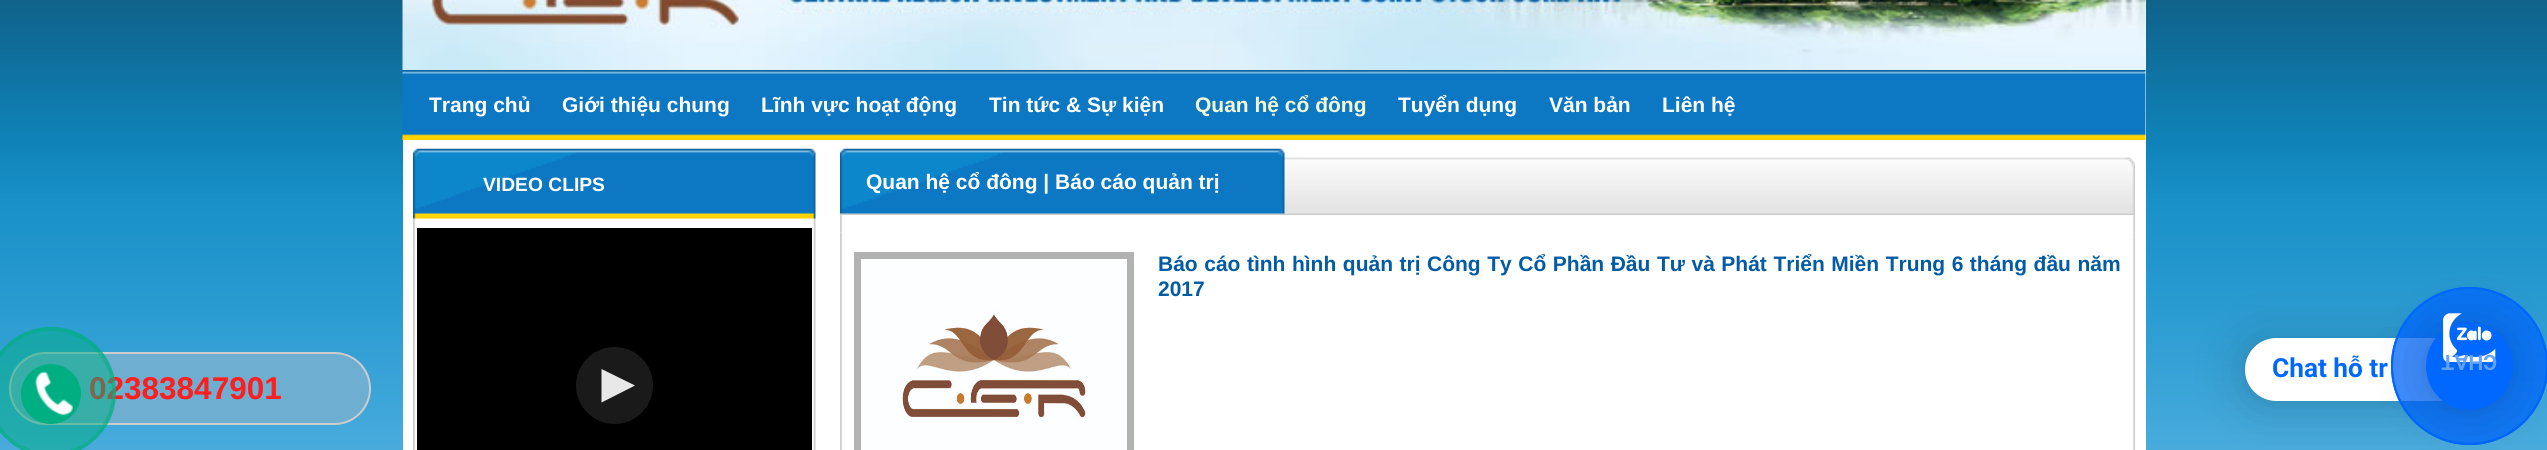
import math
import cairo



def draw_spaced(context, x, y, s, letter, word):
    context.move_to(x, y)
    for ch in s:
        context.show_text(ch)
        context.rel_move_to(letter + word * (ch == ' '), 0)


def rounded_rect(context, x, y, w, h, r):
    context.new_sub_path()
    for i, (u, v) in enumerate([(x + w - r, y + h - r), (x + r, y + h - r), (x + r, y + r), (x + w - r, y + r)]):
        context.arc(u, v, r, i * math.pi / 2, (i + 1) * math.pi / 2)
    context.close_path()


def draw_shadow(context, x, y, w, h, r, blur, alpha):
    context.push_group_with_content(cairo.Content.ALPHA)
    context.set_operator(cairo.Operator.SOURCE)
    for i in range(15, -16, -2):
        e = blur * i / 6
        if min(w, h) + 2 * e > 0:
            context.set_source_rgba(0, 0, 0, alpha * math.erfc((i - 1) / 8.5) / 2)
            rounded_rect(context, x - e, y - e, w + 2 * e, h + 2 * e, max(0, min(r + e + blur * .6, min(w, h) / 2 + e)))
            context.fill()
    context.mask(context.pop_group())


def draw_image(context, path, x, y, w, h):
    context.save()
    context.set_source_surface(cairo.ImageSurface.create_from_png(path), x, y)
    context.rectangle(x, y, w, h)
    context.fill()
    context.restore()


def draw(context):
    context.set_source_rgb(1, 1, 1)
    context.paint()
    draw_image(context, "images/1.png", 0, 0, 2547, 450)
    context.set_source_rgb(1, 1, 1)
    context.rectangle(403, 0, 1743, 450)
    context.fill()
    draw_image(context, "images/2.png", 402, 0, 1744, 70)
    draw_image(context, "images/3.png", 402, 70, 1744, 70)
    draw_image(context, "images/4.png", 413, 148, 403, 71)
    draw_image(context, "images/5.png", 413, 218, 403, 232)
    context.set_source_rgb(0, 0, 0)
    context.rectangle(417, 228, 395, 222)
    context.fill()
    context.set_source_rgb(26 / 255, 26 / 255, 26 / 255)
    context.arc(614.5, 385.5, 38.5, 0, 2 * math.pi)
    context.fill()
    context.set_source_rgb(232 / 255, 232 / 255, 232 / 255)
    context.new_path()
    context.move_to(635, 385.5)
    context.line_to(601.5, 402.5)
    context.line_to(601.5, 369)
    context.close_path()
    context.fill()
    draw_image(context, "images/6.png", 840, 148, 1295, 68)
    draw_image(context, "images/7.png", 840, 215, 1295, 18)
    draw_image(context, "images/8.png", 840, 233, 1295, 217)
    context.set_source_rgb(178 / 255, 178 / 255, 178 / 255)
    context.rectangle(854, 252, 280, 198)
    context.fill()
    context.rectangle(862, 260, 264, 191)
    context.set_source_rgb(1, 1, 1)
    context.stroke()
    draw_image(context, "images/9.png", 863, 261, 262, 189)
    context.set_source_rgb(0, 0, 0)
    draw_shadow(context, 2245, 341, 202, 63, 31.5, 28, 0.16)
    draw_shadow(context, 2245, 340, 202, 63, 31.5, 5, 0.06)
    context.set_source_rgb(1, 1, 1)
    context.new_path()
    context.move_to(2276.5, 338)
    context.line_to(2447, 338)
    context.line_to(2447, 401)
    context.line_to(2276.5, 401)
    context.curve_to(2259, 401, 2245, 387, 2245, 369.5)
    context.curve_to(2245, 352, 2259, 338, 2276.5, 338)
    context.close_path()
    context.fill()
    context.set_source_rgba(0, 104 / 255, 1, 0.5)
    rounded_rect(context, 2392, 288, 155, 156, 77.5)
    context.fill_preserve()
    context.set_source_rgb(0, 104 / 255, 1)
    context.stroke()
    context.set_source_rgba(0, 104 / 255, 1, 0.5)
    rounded_rect(context, 2392, 288, 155, 156, 77.5)
    context.fill_preserve()
    context.set_source_rgb(0, 104 / 255, 1)
    context.stroke()
    context.set_source_rgb(0, 0, 0)
    draw_shadow(context, 2426, 326, 87, 87, 43.5, 28, 0.16)
    draw_shadow(context, 2426, 324, 87, 87, 43.5, 5, 0.06)
    context.set_source_rgb(0, 104 / 255, 1)
    rounded_rect(context, 2426, 322, 87, 88, 43.5)
    context.fill()
    draw_image(context, "images/10.png", 2443, 313, 53, 49)
    context.set_source_rgb(110 / 255, 174 / 255, 209 / 255)
    rounded_rect(context, 10, 353, 360, 71, 35.5)
    context.fill_preserve()
    context.set_source_rgb(204 / 255, 204 / 255, 204 / 255)
    context.stroke()
    context.select_font_face("Liberation Sans", cairo.FontSlant.NORMAL, cairo.FontWeight.BOLD)
    context.set_font_size(21)
    context.set_source_rgb(1, 1, 1)
    context.move_to(429, 112)
    context.show_text("Trang chủ")
    context.move_to(562, 112)
    context.show_text("Giới thiệu chung")
    context.move_to(761, 112)
    context.show_text("Lĩnh vực hoạt động")
    context.move_to(989, 112)
    context.show_text("Tin tức & Sự kiện")
    context.set_source_rgb(242 / 255, 248 / 255, 212 / 255)
    context.move_to(1195, 112)
    context.show_text("Quan hệ cổ đông")
    context.set_source_rgb(1, 1, 1)
    context.move_to(1398, 112)
    context.show_text("Tuyển dụng")
    context.move_to(1549, 112)
    context.show_text("Văn bản")
    context.move_to(1662, 112)
    context.show_text("Liên hệ")
    context.set_font_size(19.25)
    context.move_to(483, 191)
    context.show_text("VIDEO CLIPS")
    context.set_font_size(21)
    context.move_to(866, 189)
    context.show_text("Quan hệ cổ đông | Báo cáo quản trị")
    context.set_source_rgb(2 / 255, 91 / 255, 164 / 255)
    draw_spaced(context, 1158, 271, "Báo cáo tình hình quản trị Công Ty Cổ Phần Đầu Tư và Phát Triển Miền Trung 6 tháng đầu năm", 0, 0.7)
    context.move_to(1158, 296)
    context.show_text("2017")
    context.select_font_face("Roboto", cairo.FontSlant.NORMAL, cairo.FontWeight.BOLD)
    context.set_font_size(26.25)
    context.set_source_rgb(0, 104 / 255, 1)
    context.move_to(2272, 377)
    context.show_text("Chat hỗ tr")
    context.set_font_size(21)
    context.set_source_rgb(99 / 255, 163 / 255, 1)
    context.save()
    context.translate(2497, 355)
    context.rotate(180 * math.pi / 180)
    context.move_to(0, 0)
    context.show_text("CHAT")
    context.restore()
    context.select_font_face("Liberation Sans", cairo.FontSlant.NORMAL, cairo.FontWeight.BOLD)
    context.set_font_size(31.5)
    context.set_source_rgb(1, 30 / 255, 30 / 255)
    context.move_to(89, 399)
    context.show_text("02383847901")
    context.set_source_rgba(0, 175 / 255, 129 / 255, 0.5)
    context.new_path()
    context.arc(51, 392, 65, 0, 2 * math.pi)
    context.fill()
    context.arc(51, 392, 63, 0, 2 * math.pi)
    context.set_line_width(4)
    context.stroke()
    context.set_source_rgb(0, 175 / 255, 129 / 255)
    context.arc(51, 394, 30, 0, 2 * math.pi)
    context.fill()
    draw_image(context, "images/11.png", 35, 371, 38, 45)


surface = cairo.ImageSurface(cairo.Format.RGB24, 2547, 450)
context = cairo.Context(surface)
options = cairo.FontOptions()
options.set_hint_metrics(cairo.HintMetrics.OFF)
options.set_hint_style(cairo.HintStyle.NONE)
context.set_font_options(options)
context.set_miter_limit(4)
draw(context)
surface.write_to_png("out.png")
